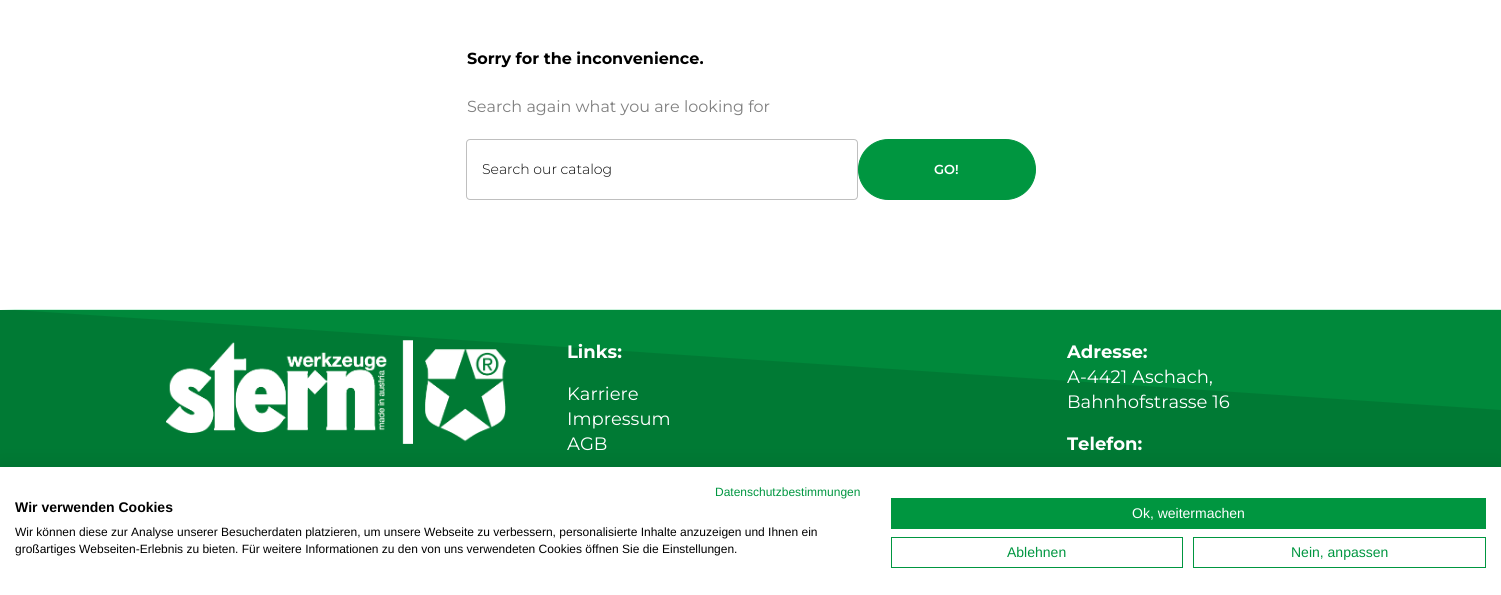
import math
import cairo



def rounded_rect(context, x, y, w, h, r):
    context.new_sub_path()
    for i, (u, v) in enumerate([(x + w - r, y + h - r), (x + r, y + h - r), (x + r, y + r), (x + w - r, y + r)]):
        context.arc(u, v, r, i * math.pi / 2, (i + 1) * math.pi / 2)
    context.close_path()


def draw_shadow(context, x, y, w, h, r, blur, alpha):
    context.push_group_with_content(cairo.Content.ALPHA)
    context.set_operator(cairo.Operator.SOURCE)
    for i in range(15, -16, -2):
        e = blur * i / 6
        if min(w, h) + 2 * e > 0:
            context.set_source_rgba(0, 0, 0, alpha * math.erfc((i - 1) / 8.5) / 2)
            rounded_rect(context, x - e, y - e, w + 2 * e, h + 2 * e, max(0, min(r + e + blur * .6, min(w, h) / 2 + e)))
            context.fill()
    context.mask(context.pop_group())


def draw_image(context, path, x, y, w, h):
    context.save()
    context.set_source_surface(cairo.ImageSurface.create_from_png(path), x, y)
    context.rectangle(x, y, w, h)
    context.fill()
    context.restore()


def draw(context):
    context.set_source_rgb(1, 1, 1)
    context.paint()
    rounded_rect(context, 466.5, 139.5, 391, 60, 3.5)
    context.set_source_rgb(191 / 255, 191 / 255, 191 / 255)
    context.set_line_width(1)
    context.stroke()
    context.set_source_rgb(0, 150 / 255, 64 / 255)
    rounded_rect(context, 858.5, 139.5, 177, 60, 30)
    context.fill_preserve()
    context.stroke()
    context.set_source_rgb(0, 122 / 255, 52 / 255)
    context.rectangle(0, 310, 1501, 157)
    context.fill()
    context.set_source_rgba(0, 199 / 255, 85 / 255, 0.2)
    context.new_path()
    context.move_to(0, 309)
    context.line_to(1501, 309)
    context.line_to(1501, 410)
    context.close_path()
    context.fill()
    draw_image(context, "images/1.png", 166, 340, 340, 104)
    context.set_source_rgb(0, 0, 0)
    draw_shadow(context, 0, 467, 1501, 128, 0, 12, 0.1)
    context.set_source_rgb(1, 1, 1)
    context.rectangle(0, 467, 1501, 128)
    context.fill()
    context.set_source_rgb(0, 150 / 255, 64 / 255)
    context.rectangle(891, 498, 595, 31)
    context.fill()
    context.rectangle(891.5, 537.5, 291, 30)
    context.stroke()
    context.rectangle(1193.5, 537.5, 292, 30)
    context.stroke()
    context.select_font_face("Montserrat Thin")
    context.set_font_size(16)
    context.set_source_rgb(0, 0, 0)
    context.move_to(467, 64)
    context.show_text("Sorry for the inconvenience.")
    context.select_font_face("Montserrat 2 Thin")
    context.set_source_rgb(128 / 255, 128 / 255, 128 / 255)
    context.move_to(467, 112)
    context.show_text("Search again what you are looking for")
    context.select_font_face("Montserrat Light")
    context.set_font_size(14)
    context.set_source_rgb(0, 0, 0)
    context.move_to(482, 174)
    context.show_text("Search our catalog")
    context.select_font_face("Montserrat SemiBold")
    context.set_font_size(13)
    context.set_source_rgb(1, 1, 1)
    context.move_to(934, 174)
    context.show_text("GO!")
    context.select_font_face("Montserrat Thin")
    context.set_font_size(18)
    context.move_to(567, 358)
    context.show_text("Links:")
    context.select_font_face("Montserrat 2 Thin")
    context.move_to(567, 400)
    context.show_text("Karriere")
    context.move_to(567, 425)
    context.show_text("Impressum")
    context.move_to(567, 450)
    context.show_text("AGB")
    context.select_font_face("Montserrat Thin")
    context.move_to(1067, 358)
    context.show_text("Adresse:")
    context.select_font_face("Montserrat 2 Thin")
    context.move_to(1067, 383)
    context.show_text("A-4421 Aschach,")
    context.move_to(1067, 408)
    context.show_text("Bahnhofstrasse 16")
    context.select_font_face("Montserrat Thin")
    context.move_to(1067, 450)
    context.show_text("Telefon:")
    context.select_font_face("Liberation Sans")
    context.set_font_size(12)
    context.set_source_rgb(0, 150 / 255, 64 / 255)
    context.move_to(715, 496)
    context.show_text("Datenschutzbestimmungen")
    context.select_font_face("Liberation Sans", cairo.FontSlant.NORMAL, cairo.FontWeight.BOLD)
    context.set_font_size(14)
    context.set_source_rgb(0, 0, 0)
    context.move_to(15, 512)
    context.show_text("Wir verwenden Cookies")
    context.select_font_face("Liberation Sans")
    context.set_font_size(12)
    context.move_to(15, 536)
    context.show_text("Wir können diese zur Analyse unserer Besucherdaten platzieren, um unsere Webseite zu verbessern, personalisierte Inhalte anzuzeigen und Ihnen ein")
    context.move_to(15, 553)
    context.show_text("großartiges Webseiten-Erlebnis zu bieten. Für weitere Informationen zu den von uns verwendeten Cookies öffnen Sie die Einstellungen.")
    context.set_font_size(14)
    context.set_source_rgb(1, 1, 1)
    context.move_to(1132, 518)
    context.show_text("Ok, weitermachen")
    context.set_source_rgb(0, 150 / 255, 64 / 255)
    context.move_to(1007, 557)
    context.show_text("Ablehnen")
    context.move_to(1291, 557)
    context.show_text("Nein, anpassen")


surface = cairo.ImageSurface(cairo.Format.RGB24, 1501, 595)
context = cairo.Context(surface)
options = cairo.FontOptions()
options.set_hint_metrics(cairo.HintMetrics.OFF)
options.set_hint_style(cairo.HintStyle.NONE)
context.set_font_options(options)
context.set_miter_limit(4)
draw(context)
surface.write_to_png("out.png")
